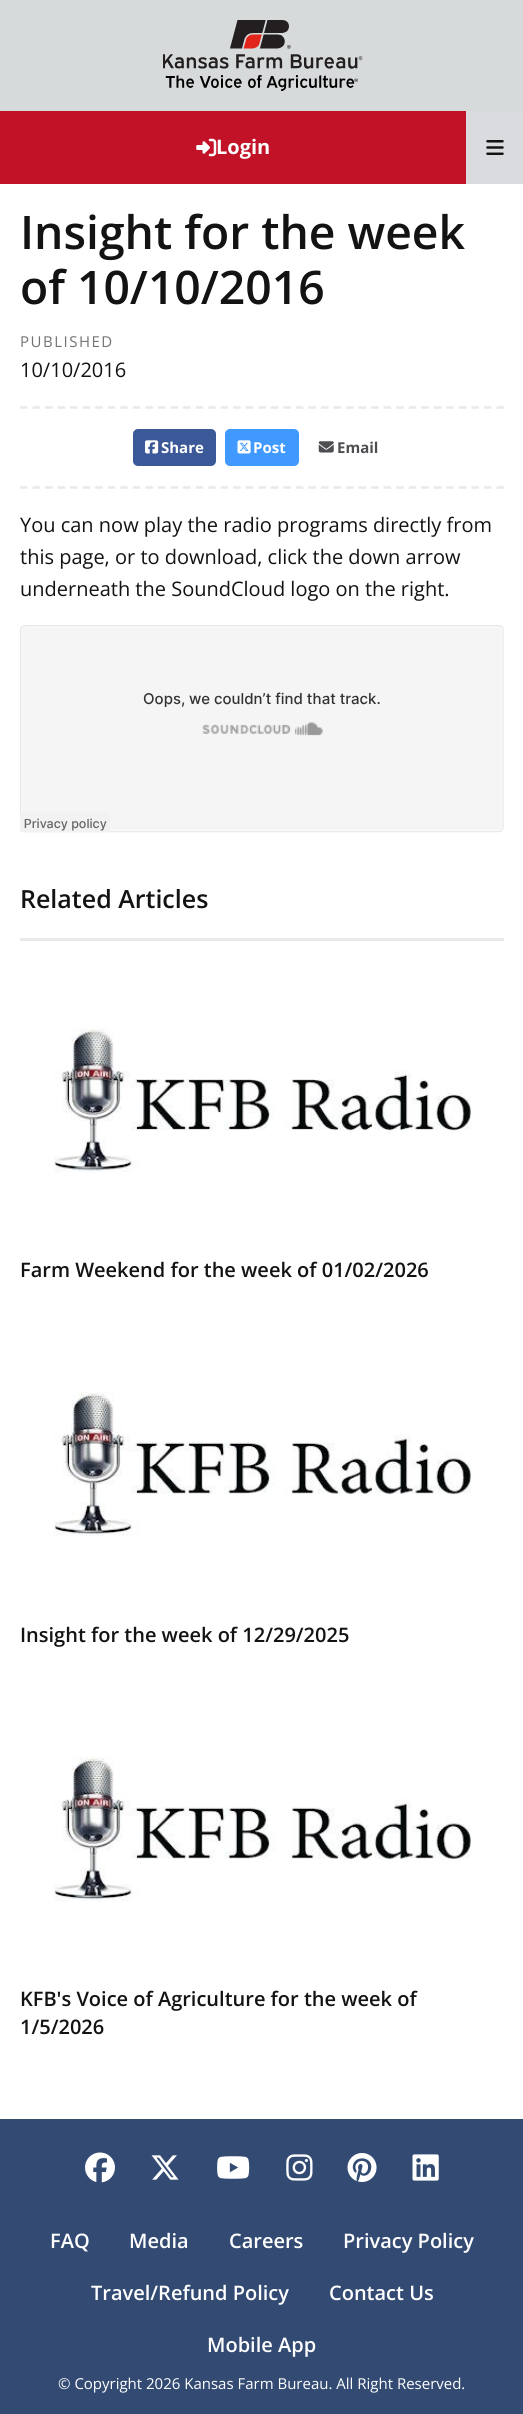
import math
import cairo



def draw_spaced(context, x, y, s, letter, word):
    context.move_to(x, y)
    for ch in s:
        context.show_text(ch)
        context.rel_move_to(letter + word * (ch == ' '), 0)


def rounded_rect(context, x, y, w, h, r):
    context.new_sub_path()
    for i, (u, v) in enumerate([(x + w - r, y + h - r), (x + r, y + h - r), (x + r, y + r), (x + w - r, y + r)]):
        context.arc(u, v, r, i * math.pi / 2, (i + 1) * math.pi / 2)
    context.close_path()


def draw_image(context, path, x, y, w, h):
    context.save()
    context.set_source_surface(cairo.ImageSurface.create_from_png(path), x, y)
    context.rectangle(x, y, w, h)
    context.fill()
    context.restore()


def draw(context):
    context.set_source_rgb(1, 1, 1)
    context.paint()
    context.set_source_rgb(215 / 255, 218 / 255, 219 / 255)
    context.rectangle(0, 0, 523, 111)
    context.fill()
    draw_image(context, "images/1.png", 163, 20, 200, 71)
    context.set_source_rgb(193 / 255, 18 / 255, 39 / 255)
    context.rectangle(0, 111, 466, 73)
    context.fill()
    draw_image(context, "images/2.png", 196, 138, 21, 19)
    context.set_source_rgb(217 / 255, 219 / 255, 222 / 255)
    context.rectangle(466, 111, 57, 73)
    context.fill()
    draw_image(context, "images/3.png", 486, 140, 18, 15)
    context.new_path()
    context.move_to(20, 407.5)
    context.line_to(504, 407.5)
    context.set_source_rgb(232 / 255, 233 / 255, 235 / 255)
    context.set_line_width(2.5)
    context.set_dash([7.5, 5.04])
    context.stroke()
    context.new_path()
    context.move_to(20, 487.5)
    context.line_to(504, 487.5)
    context.stroke()
    context.set_source_rgb(59 / 255, 89 / 255, 152 / 255)
    rounded_rect(context, 133, 429, 83, 37, 5)
    context.fill()
    draw_image(context, "images/4.png", 145, 440, 14, 14)
    context.set_source_rgb(64 / 255, 153 / 255, 1)
    rounded_rect(context, 225, 429, 74, 37, 5)
    context.fill()
    draw_image(context, "images/5.png", 237, 440, 14, 14)
    draw_image(context, "images/6.png", 318, 441, 16, 12)
    draw_image(context, "images/7.png", 20, 625, 484, 208)
    context.set_source_rgb(232 / 255, 233 / 255, 235 / 255)
    context.rectangle(20, 938, 484, 3)
    context.fill()
    draw_image(context, "images/8.png", 54, 1028, 417, 145)
    draw_image(context, "images/9.png", 54, 1391, 417, 146)
    draw_image(context, "images/9.png", 54, 1756, 417, 146)
    context.set_source_rgb(51 / 255, 75 / 255, 115 / 255)
    context.rectangle(0, 2119, 523, 295)
    context.fill()
    draw_image(context, "images/10.png", 85, 2152, 30, 31)
    draw_image(context, "images/11.png", 151, 2155, 28, 25)
    draw_image(context, "images/12.png", 217, 2156, 33, 23)
    draw_image(context, "images/13.png", 286, 2154, 27, 27)
    draw_image(context, "images/14.png", 347, 2153, 30, 29)
    draw_image(context, "images/15.png", 412, 2154, 27, 27)
    context.select_font_face("Open Sans", cairo.FontSlant.NORMAL, cairo.FontWeight.BOLD)
    context.set_font_size(20)
    context.set_source_rgb(1, 1, 1)
    context.move_to(216, 154)
    context.show_text("Login")
    context.select_font_face("Open Sans SemiBold")
    context.set_font_size(46.25)
    context.set_source_rgb(19 / 255, 19 / 255, 20 / 255)
    context.move_to(20, 249)
    context.show_text("Insight for the week")
    context.move_to(20, 304)
    context.show_text("of 10/10/2016")
    context.select_font_face("Open Sans")
    context.set_font_size(15)
    context.set_source_rgb(114 / 255, 114 / 255, 117 / 255)
    draw_spaced(context, 20, 347, "PUBLISHED", 1.5, 0)
    context.set_font_size(20)
    context.set_source_rgb(19 / 255, 19 / 255, 20 / 255)
    context.move_to(20, 377)
    context.show_text("10/10/2016")
    context.select_font_face("Open Sans", cairo.FontSlant.NORMAL, cairo.FontWeight.BOLD)
    context.set_font_size(15)
    context.set_source_rgb(1, 1, 1)
    context.move_to(161, 453)
    context.show_text("Share")
    context.move_to(253, 453)
    context.show_text("Post")
    context.set_source_rgb(78 / 255, 78 / 255, 82 / 255)
    context.move_to(337, 453)
    context.show_text("Email")
    context.select_font_face("Open Sans")
    context.set_font_size(20)
    context.set_source_rgb(19 / 255, 19 / 255, 20 / 255)
    context.move_to(20, 532)
    context.show_text("You can now play the radio programs directly from")
    context.move_to(20, 564)
    context.show_text("this page, or to download, click the down arrow")
    context.move_to(20, 596)
    context.show_text("underneath the SoundCloud logo on the right.")
    context.select_font_face("Open Sans SemiBold")
    context.set_font_size(25)
    context.move_to(20, 908)
    context.show_text("Related Articles")
    context.set_font_size(20)
    context.move_to(20, 1277)
    context.show_text("Farm Weekend for the week of 01/02/2026")
    context.move_to(20, 1642)
    context.show_text("Insight for the week of 12/29/2025")
    context.move_to(20, 2006)
    context.show_text("KFB's Voice of Agriculture for the week of")
    context.move_to(20, 2034)
    context.show_text("1/5/2026")
    context.set_source_rgb(1, 1, 1)
    context.move_to(50, 2248)
    context.show_text("FAQ")
    context.move_to(129, 2248)
    context.show_text("Media")
    context.move_to(229, 2248)
    context.show_text("Careers")
    context.move_to(343, 2248)
    context.show_text("Privacy Policy")
    context.move_to(91, 2300)
    context.show_text("Travel/Refund Policy")
    context.move_to(329, 2300)
    context.show_text("Contact Us")
    context.move_to(207, 2352)
    context.show_text("Mobile App")
    context.select_font_face("Open Sans")
    context.set_font_size(15)
    context.move_to(58, 2389)
    context.show_text("© Copyright 2026 Kansas Farm Bureau. All Right Reserved.")


surface = cairo.ImageSurface(cairo.Format.RGB24, 523, 2414)
context = cairo.Context(surface)
options = cairo.FontOptions()
options.set_hint_metrics(cairo.HintMetrics.OFF)
options.set_hint_style(cairo.HintStyle.NONE)
context.set_font_options(options)
context.set_miter_limit(4)
draw(context)
surface.write_to_png("out.png")
